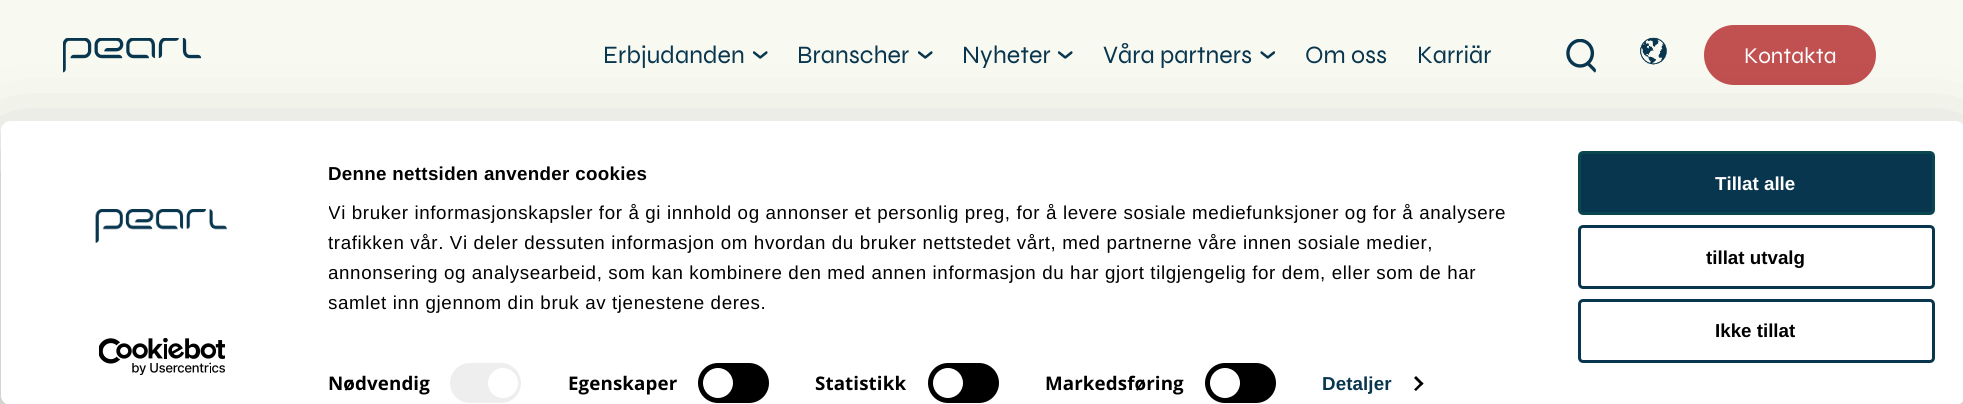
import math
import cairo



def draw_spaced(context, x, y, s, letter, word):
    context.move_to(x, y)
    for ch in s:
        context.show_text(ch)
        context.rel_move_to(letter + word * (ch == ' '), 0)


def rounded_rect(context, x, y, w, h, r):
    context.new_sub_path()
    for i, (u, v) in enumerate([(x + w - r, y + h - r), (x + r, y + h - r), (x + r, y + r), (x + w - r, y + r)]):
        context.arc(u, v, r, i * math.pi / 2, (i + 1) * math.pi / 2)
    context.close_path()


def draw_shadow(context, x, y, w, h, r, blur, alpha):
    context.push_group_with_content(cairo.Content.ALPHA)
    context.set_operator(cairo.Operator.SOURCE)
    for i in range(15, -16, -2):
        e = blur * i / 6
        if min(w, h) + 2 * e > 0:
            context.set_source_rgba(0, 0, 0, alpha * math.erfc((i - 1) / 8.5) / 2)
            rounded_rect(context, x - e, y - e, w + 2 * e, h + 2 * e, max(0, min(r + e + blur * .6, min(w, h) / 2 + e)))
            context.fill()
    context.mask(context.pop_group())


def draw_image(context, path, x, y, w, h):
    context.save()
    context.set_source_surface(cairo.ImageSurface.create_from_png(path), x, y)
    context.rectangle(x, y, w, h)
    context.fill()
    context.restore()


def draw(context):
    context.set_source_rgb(248 / 255, 249 / 255, 241 / 255)
    context.paint()
    draw_image(context, "images/1.png", 63, 38, 138, 35)
    draw_image(context, "images/2.png", 753, 51, 15, 8)
    draw_image(context, "images/2.png", 918, 51, 15, 8)
    draw_image(context, "images/2.png", 1058, 51, 15, 8)
    draw_image(context, "images/3.png", 1260, 51, 15, 8)
    draw_image(context, "images/4.png", 1566, 39, 30, 34)
    draw_image(context, "images/5.png", 1640, 37, 27, 28)
    context.set_source_rgb(193 / 255, 80 / 255, 80 / 255)
    rounded_rect(context, 1704, 25, 172, 60, 30)
    context.fill()
    context.save()
    context.set_fill_rule(cairo.FillRule.EVEN_ODD)
    context.new_path()
    context.move_to(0, 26)
    context.line_to(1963, 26)
    context.line_to(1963, 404)
    context.line_to(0, 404)
    context.close_path()
    context.move_to(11, 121)
    context.line_to(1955, 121)
    context.curve_to(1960.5, 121, 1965, 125.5, 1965, 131)
    context.line_to(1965, 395)
    context.curve_to(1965, 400.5, 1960.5, 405, 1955, 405)
    context.line_to(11, 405)
    context.curve_to(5.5, 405, 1, 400.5, 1, 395)
    context.line_to(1, 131)
    context.curve_to(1, 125.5, 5.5, 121, 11, 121)
    context.close_path()
    context.clip()
    context.set_source_rgb(0, 0, 0)
    draw_shadow(context, 1, 159, 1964, 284, 10, 44, 0.3)
    context.restore()
    context.set_source_rgb(1, 1, 1)
    rounded_rect(context, 1, 121, 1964, 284, 10)
    context.fill()
    draw_image(context, "images/6.png", 95, 209, 132, 34)
    draw_image(context, "images/7.png", 99, 338, 126, 37)
    context.set_source_rgb(238 / 255, 238 / 255, 238 / 255)
    rounded_rect(context, 450, 363, 71, 40, 20)
    context.fill()
    context.set_source_rgb(1, 1, 1)
    context.arc(503, 383, 15, 0, 2 * math.pi)
    context.fill()
    context.set_source_rgb(0, 0, 0)
    rounded_rect(context, 698, 363, 71, 40, 20)
    context.fill()
    context.set_source_rgb(1, 1, 1)
    context.arc(718, 383, 15, 0, 2 * math.pi)
    context.fill()
    context.set_source_rgb(0, 0, 0)
    rounded_rect(context, 928, 363, 71, 40, 20)
    context.fill()
    context.set_source_rgb(1, 1, 1)
    context.arc(948, 383, 15, 0, 2 * math.pi)
    context.fill()
    context.set_source_rgb(0, 0, 0)
    rounded_rect(context, 1205, 363, 71, 40, 20)
    context.fill()
    context.set_source_rgb(1, 1, 1)
    context.arc(1225, 383, 15, 0, 2 * math.pi)
    context.fill()
    context.set_source_rgb(0, 0, 0)
    context.new_path()
    context.move_to(1416, 376)
    context.line_to(1423.5, 383.5)
    context.line_to(1421.5, 385.5)
    context.line_to(1414, 378)
    context.close_path()
    context.fill()
    context.new_path()
    context.move_to(1421.5, 382)
    context.line_to(1423.5, 383.5)
    context.line_to(1416, 391)
    context.line_to(1414, 389.5)
    context.close_path()
    context.fill()
    context.set_source_rgb(9 / 255, 54 / 255, 79 / 255)
    rounded_rect(context, 1579.5, 152.5, 354, 61, 3.5)
    context.fill_preserve()
    context.set_source_rgb(9 / 255, 70 / 255, 79 / 255)
    context.set_line_width(3)
    context.stroke()
    rounded_rect(context, 1579.5, 226.5, 354, 61, 3.5)
    context.set_source_rgb(9 / 255, 54 / 255, 79 / 255)
    context.stroke()
    rounded_rect(context, 1579.5, 300.5, 354, 61, 3.5)
    context.stroke()
    context.select_font_face("Syne")
    context.set_font_size(25)
    context.move_to(603, 63)
    context.show_text("Erbjudanden")
    context.move_to(797, 63)
    context.show_text("Branscher")
    context.move_to(962, 63)
    context.show_text("Nyheter")
    context.move_to(1103, 63)
    context.show_text("Våra partners")
    context.select_font_face("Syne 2")
    context.move_to(1305, 63)
    context.show_text("Om oss")
    context.move_to(1417, 63)
    context.show_text("Karriär")
    context.select_font_face("Syne")
    context.set_font_size(22.5)
    context.set_source_rgb(1, 1, 1)
    context.move_to(1744, 63)
    context.show_text("Kontakta")
    context.save()
    context.rectangle(329, 159, 1212, 159)
    context.clip()
    context.select_font_face("Liberation Sans", cairo.FontSlant.NORMAL, cairo.FontWeight.BOLD)
    context.set_font_size(18.75)
    context.set_source_rgb(0, 0, 0)
    draw_spaced(context, 328, 180, "Denne nettsiden anvender cookies", 0.3, 0)
    context.select_font_face("Liberation Sans")
    draw_spaced(context, 328, 219, "Vi bruker informasjonskapsler for å gi innhold og annonser et personlig preg, for å levere sosiale mediefunksjoner og for å analysere", 0.62, 0)
    context.restore()
    context.select_font_face("Liberation Sans")
    context.set_font_size(18.75)
    context.set_source_rgb(0, 0, 0)
    draw_spaced(context, 328, 249, "trafikken vår. Vi deler dessuten informasjon om hvordan du bruker nettstedet vårt, med partnerne våre innen sosiale medier,", 0.62, 0)
    context.save()
    context.rectangle(329, 159, 1212, 159)
    context.clip()
    draw_spaced(context, 328, 279, "annonsering og analysearbeid, som kan kombinere den med annen informasjon du har gjort tilgjengelig for dem, eller som de har", 0.62, 0)
    draw_spaced(context, 328, 309, "samlet inn gjennom din bruk av tjenestene deres.", 0.62, 0)
    context.restore()
    context.select_font_face("Open Sans", cairo.FontSlant.NORMAL, cairo.FontWeight.BOLD)
    draw_spaced(context, 328, 390, "Nødvendig", 0.1, 0)
    draw_spaced(context, 568, 390, "Egenskaper", 0.1, 0)
    draw_spaced(context, 815, 390, "Statistikk", 0.1, 0)
    draw_spaced(context, 1045, 390, "Markedsføring", 0.1, 0)
    context.select_font_face("Liberation Sans", cairo.FontSlant.NORMAL, cairo.FontWeight.BOLD)
    context.set_source_rgb(9 / 255, 54 / 255, 79 / 255)
    draw_spaced(context, 1322, 390, "Detaljer", 0.1, 0)
    context.set_source_rgb(1, 1, 1)
    context.move_to(1715, 190)
    context.show_text("Tillat alle")
    context.set_source_rgb(0, 0, 0)
    context.move_to(1706, 264)
    context.show_text("tillat utvalg")
    context.move_to(1715, 337)
    context.show_text("Ikke tillat")


surface = cairo.ImageSurface(cairo.Format.RGB24, 1963, 404)
context = cairo.Context(surface)
options = cairo.FontOptions()
options.set_hint_metrics(cairo.HintMetrics.OFF)
options.set_hint_style(cairo.HintStyle.NONE)
context.set_font_options(options)
context.set_miter_limit(4)
draw(context)
surface.write_to_png("out.png")
